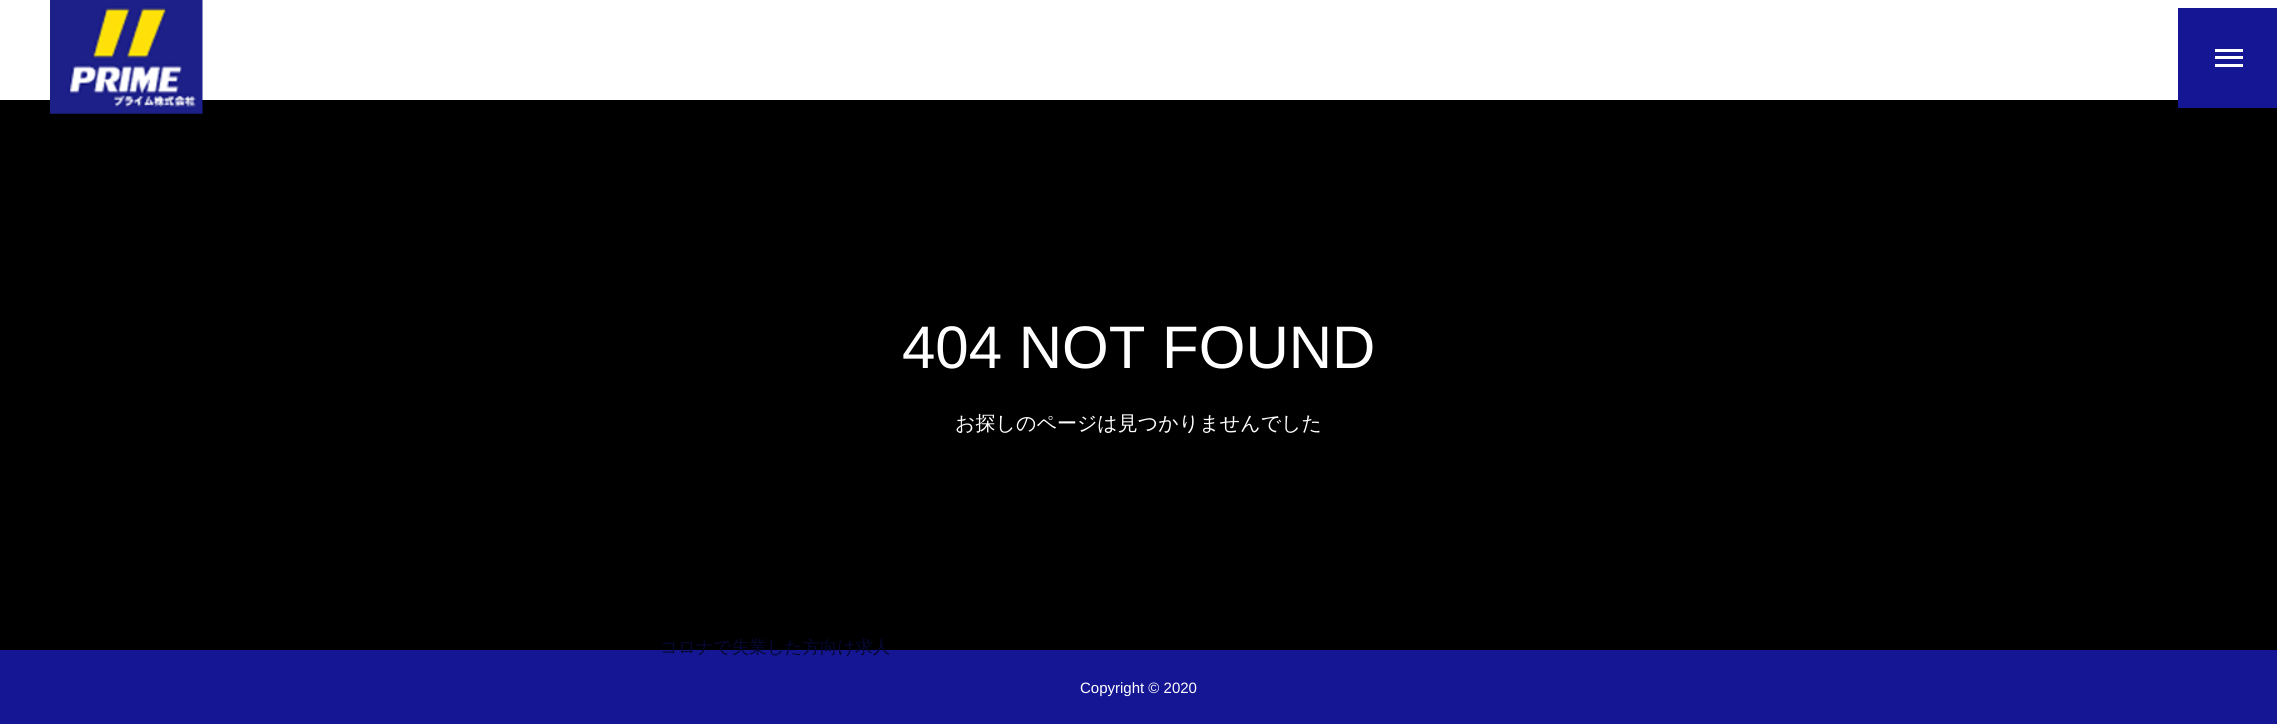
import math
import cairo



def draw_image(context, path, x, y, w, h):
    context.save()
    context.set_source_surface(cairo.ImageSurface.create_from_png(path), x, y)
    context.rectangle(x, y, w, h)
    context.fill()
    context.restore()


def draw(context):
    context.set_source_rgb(1, 1, 1)
    context.paint()
    context.set_source_rgb(0, 0, 0)
    context.rectangle(0, 100, 2277, 550)
    context.fill()
    draw_image(context, "images/1.png", 50, 0, 153, 114)
    context.set_source_rgb(20 / 255, 22 / 255, 148 / 255)
    context.rectangle(2178, 8, 99, 100)
    context.fill()
    context.set_source_rgb(1, 1, 1)
    context.rectangle(2215, 49, 28, 3)
    context.fill()
    context.rectangle(2215, 56, 28, 3)
    context.fill()
    context.rectangle(2215, 64, 28, 3)
    context.fill()
    context.set_source_rgb(20 / 255, 22 / 255, 148 / 255)
    context.rectangle(0, 650, 2277, 74)
    context.fill()
    context.select_font_face("Liberation Sans")
    context.set_font_size(60)
    context.set_source_rgb(1, 1, 1)
    context.move_to(902, 368)
    context.show_text("404 NOT FOUND")
    context.select_font_face("WenQuanYi Zen Hei Medium")
    context.set_font_size(20)
    context.move_to(955, 430)
    context.show_text("お探しのページは見つかりませんでした")
    context.set_font_size(17.5)
    context.set_source_rgb(7 / 255, 8 / 255, 51 / 255)
    context.move_to(660, 653)
    context.show_text("コロナで失業した方向け求人")
    context.select_font_face("Liberation Sans")
    context.set_font_size(15)
    context.set_source_rgb(1, 1, 1)
    context.move_to(1080, 693)
    context.show_text("Copyright © 2020")


surface = cairo.ImageSurface(cairo.Format.RGB24, 2277, 724)
context = cairo.Context(surface)
options = cairo.FontOptions()
options.set_hint_metrics(cairo.HintMetrics.OFF)
options.set_hint_style(cairo.HintStyle.NONE)
context.set_font_options(options)
context.set_miter_limit(4)
draw(context)
surface.write_to_png("out.png")
